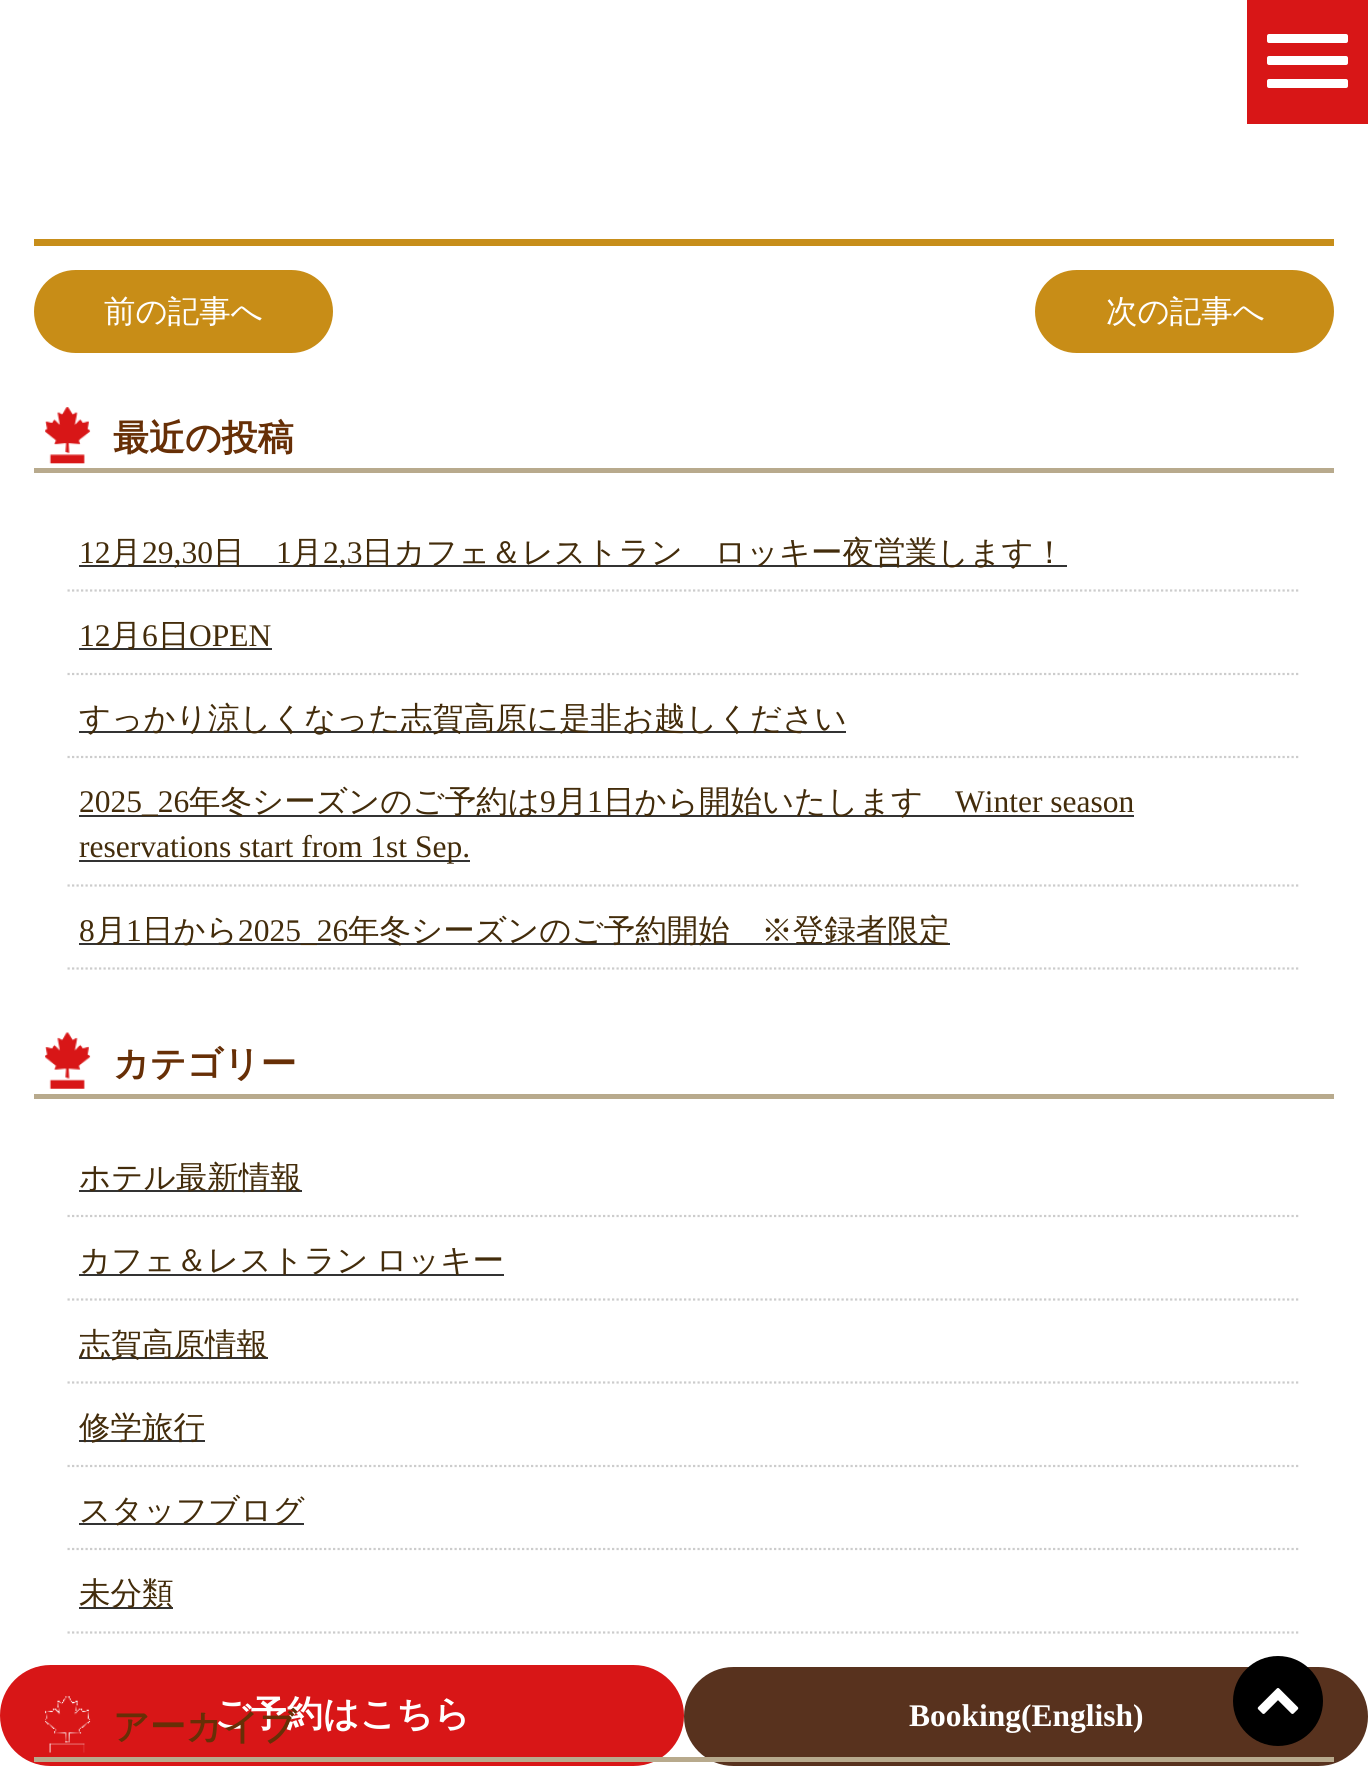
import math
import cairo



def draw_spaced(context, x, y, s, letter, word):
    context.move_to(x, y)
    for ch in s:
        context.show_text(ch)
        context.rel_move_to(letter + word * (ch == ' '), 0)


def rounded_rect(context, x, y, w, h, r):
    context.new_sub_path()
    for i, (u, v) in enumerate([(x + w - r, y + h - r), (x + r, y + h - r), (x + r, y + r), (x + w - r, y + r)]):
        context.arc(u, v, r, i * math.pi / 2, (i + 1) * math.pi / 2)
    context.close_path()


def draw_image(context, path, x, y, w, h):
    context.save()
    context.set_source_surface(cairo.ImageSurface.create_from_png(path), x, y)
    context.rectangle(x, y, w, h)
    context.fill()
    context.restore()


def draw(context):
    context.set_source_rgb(1, 1, 1)
    context.paint()
    context.set_source_rgb(216 / 255, 22 / 255, 23 / 255)
    context.rectangle(1247, 0, 121, 124)
    context.fill()
    context.set_source_rgb(1, 1, 1)
    rounded_rect(context, 1267, 56, 81, 9, 2)
    context.fill()
    rounded_rect(context, 1267, 34, 81, 9, 2)
    context.fill()
    rounded_rect(context, 1267, 79, 81, 9, 2)
    context.fill()
    context.set_source_rgb(199 / 255, 142 / 255, 26 / 255)
    context.rectangle(34, 239, 1300, 7)
    context.fill()
    context.set_source_rgb(200 / 255, 141 / 255, 23 / 255)
    rounded_rect(context, 35, 271, 297, 81, 40.5)
    context.fill_preserve()
    context.stroke()
    rounded_rect(context, 1036, 271, 297, 81, 40.5)
    context.fill_preserve()
    context.stroke()
    draw_image(context, "images/1.png", 45, 407, 46, 57)
    context.set_source_rgb(184 / 255, 170 / 255, 141 / 255)
    context.rectangle(34, 468, 1300, 5)
    context.fill()
    context.new_path()
    context.move_to(67.5, 590.5)
    context.line_to(1300.5, 590.5)
    context.set_source_rgb(204 / 255, 204 / 255, 204 / 255)
    context.set_line_width(2.2)
    context.set_dash([2.25, 2.25])
    context.stroke()
    context.set_source_rgb(51 / 255, 51 / 255, 51 / 255)
    context.rectangle(79, 565, 988, 2)
    context.fill()
    context.new_path()
    context.move_to(67.5, 674)
    context.line_to(1300.5, 674)
    context.set_source_rgb(204 / 255, 204 / 255, 204 / 255)
    context.stroke()
    context.set_source_rgb(51 / 255, 51 / 255, 51 / 255)
    context.rectangle(79, 648, 193, 2)
    context.fill()
    context.new_path()
    context.move_to(67.5, 757)
    context.line_to(1300.5, 757)
    context.set_source_rgb(204 / 255, 204 / 255, 204 / 255)
    context.stroke()
    context.set_source_rgb(51 / 255, 51 / 255, 51 / 255)
    context.rectangle(79, 731, 767, 2)
    context.fill()
    context.new_path()
    context.move_to(67.5, 885.5)
    context.line_to(1300.5, 885.5)
    context.set_source_rgb(204 / 255, 204 / 255, 204 / 255)
    context.stroke()
    context.set_source_rgb(51 / 255, 51 / 255, 51 / 255)
    context.rectangle(79, 815, 1055, 2)
    context.fill()
    context.rectangle(79, 860, 391, 2)
    context.fill()
    context.new_path()
    context.move_to(67.5, 968.5)
    context.line_to(1300.5, 968.5)
    context.set_source_rgb(204 / 255, 204 / 255, 204 / 255)
    context.stroke()
    context.set_source_rgb(51 / 255, 51 / 255, 51 / 255)
    context.rectangle(79, 943, 871, 2)
    context.fill()
    draw_image(context, "images/2.png", 45, 1032, 46, 57)
    context.set_source_rgb(184 / 255, 170 / 255, 141 / 255)
    context.rectangle(34, 1094, 1300, 5)
    context.fill()
    context.new_path()
    context.move_to(67.5, 1216)
    context.line_to(1300.5, 1216)
    context.set_source_rgb(204 / 255, 204 / 255, 204 / 255)
    context.stroke()
    context.set_source_rgb(51 / 255, 51 / 255, 51 / 255)
    context.rectangle(79, 1190, 223, 2)
    context.fill()
    context.new_path()
    context.move_to(67.5, 1299.5)
    context.line_to(1300.5, 1299.5)
    context.set_source_rgb(204 / 255, 204 / 255, 204 / 255)
    context.stroke()
    context.set_source_rgb(51 / 255, 51 / 255, 51 / 255)
    context.rectangle(79, 1274, 425, 2)
    context.fill()
    context.new_path()
    context.move_to(67.5, 1382.5)
    context.line_to(1300.5, 1382.5)
    context.set_source_rgb(204 / 255, 204 / 255, 204 / 255)
    context.stroke()
    context.set_source_rgb(51 / 255, 51 / 255, 51 / 255)
    context.rectangle(79, 1357, 189, 2)
    context.fill()
    context.new_path()
    context.move_to(67.5, 1466)
    context.line_to(1300.5, 1466)
    context.set_source_rgb(204 / 255, 204 / 255, 204 / 255)
    context.stroke()
    context.set_source_rgb(51 / 255, 51 / 255, 51 / 255)
    context.rectangle(79, 1440, 126, 2)
    context.fill()
    context.new_path()
    context.move_to(67.5, 1549)
    context.line_to(1300.5, 1549)
    context.set_source_rgb(204 / 255, 204 / 255, 204 / 255)
    context.stroke()
    context.set_source_rgb(51 / 255, 51 / 255, 51 / 255)
    context.rectangle(79, 1523, 225, 2)
    context.fill()
    context.new_path()
    context.move_to(67.5, 1632.5)
    context.line_to(1300.5, 1632.5)
    context.set_source_rgb(204 / 255, 204 / 255, 204 / 255)
    context.stroke()
    context.set_source_rgb(51 / 255, 51 / 255, 51 / 255)
    context.rectangle(79, 1607, 94, 2)
    context.fill()
    context.set_source_rgb(216 / 255, 22 / 255, 23 / 255)
    rounded_rect(context, 1, 1666, 682, 99, 49.5)
    context.fill_preserve()
    context.set_line_width(2)
    context.set_dash([])
    context.stroke()
    draw_image(context, "images/3.png", 45, 1696, 46, 57)
    context.set_source_rgb(88 / 255, 50 / 255, 30 / 255)
    rounded_rect(context, 685, 1668, 682, 97, 48.5)
    context.fill_preserve()
    context.stroke()
    context.set_source_rgb(184 / 255, 170 / 255, 141 / 255)
    context.rectangle(34, 1757, 1300, 5)
    context.fill()
    context.set_source_rgb(0, 0, 0)
    context.arc(1278, 1701, 45, 0, 2 * math.pi)
    context.fill()
    draw_image(context, "images/4.png", 1257, 1688, 42, 26)
    context.select_font_face("WenQuanYi Zen Hei Medium")
    context.set_font_size(31.5)
    context.set_source_rgb(1, 1, 1)
    context.move_to(104, 322)
    context.show_text("前の記事へ")
    context.move_to(1106, 322)
    context.show_text("次の記事へ")
    context.select_font_face("WenQuanYi Zen Hei", cairo.FontSlant.NORMAL, cairo.FontWeight.BOLD)
    context.set_font_size(36)
    context.set_source_rgb(103 / 255, 47 / 255, 6 / 255)
    context.move_to(113, 450)
    context.show_text("最近の投稿")
    context.select_font_face("Liberation Serif")
    context.set_font_size(31.5)
    context.set_source_rgb(67 / 255, 44 / 255, 11 / 255)
    context.move_to(79, 563)
    context.show_text("12")
    context.select_font_face("WenQuanYi Zen Hei Medium")
    context.move_to(110, 563)
    context.show_text("月")
    context.select_font_face("Liberation Serif")
    context.move_to(142, 563)
    context.show_text("29,30")
    context.select_font_face("WenQuanYi Zen Hei Medium")
    context.move_to(213, 563)
    context.show_text("日")
    context.select_font_face("Liberation Serif")
    context.move_to(276, 563)
    context.show_text("1")
    context.select_font_face("WenQuanYi Zen Hei Medium")
    context.move_to(291, 563)
    context.show_text("月")
    context.select_font_face("Liberation Serif")
    context.move_to(323, 563)
    context.show_text("2,3")
    context.select_font_face("WenQuanYi Zen Hei Medium")
    context.move_to(362, 563)
    context.show_text("日カフェ＆レストラン　ロッキー夜営業します！")
    context.select_font_face("Liberation Serif")
    context.move_to(79, 646)
    context.show_text("12")
    context.select_font_face("WenQuanYi Zen Hei Medium")
    context.move_to(110, 646)
    context.show_text("月")
    context.select_font_face("Liberation Serif")
    context.move_to(142, 646)
    context.show_text("6")
    context.select_font_face("WenQuanYi Zen Hei Medium")
    context.move_to(158, 646)
    context.show_text("日")
    context.select_font_face("Liberation Serif")
    context.move_to(189, 646)
    context.show_text("OPEN")
    context.select_font_face("WenQuanYi Zen Hei Medium")
    context.move_to(79, 729)
    context.show_text("すっかり涼しくなった志賀高原に是非お越しください")
    context.select_font_face("Liberation Serif")
    context.move_to(79, 812)
    context.show_text("2025_26")
    context.select_font_face("WenQuanYi Zen Hei Medium")
    context.move_to(189, 812)
    context.show_text("年冬シーズンのご予約は")
    context.select_font_face("Liberation Serif")
    context.move_to(540, 812)
    context.show_text("9")
    context.select_font_face("WenQuanYi Zen Hei Medium")
    context.move_to(556, 812)
    context.show_text("月")
    context.select_font_face("Liberation Serif")
    context.move_to(587, 812)
    context.show_text("1")
    context.select_font_face("WenQuanYi Zen Hei Medium")
    context.move_to(603, 812)
    context.show_text("日から開始いたします")
    context.select_font_face("Liberation Serif")
    context.move_to(955, 812)
    context.show_text("Winter season")
    context.move_to(79, 857)
    context.show_text("reservations start from 1st Sep.")
    context.move_to(79, 941)
    context.show_text("8")
    context.select_font_face("WenQuanYi Zen Hei Medium")
    context.move_to(95, 941)
    context.show_text("月")
    context.select_font_face("Liberation Serif")
    context.move_to(126, 941)
    context.show_text("1")
    context.select_font_face("WenQuanYi Zen Hei Medium")
    context.move_to(142, 941)
    context.show_text("日から")
    context.select_font_face("Liberation Serif")
    context.move_to(238, 941)
    context.show_text("2025_26")
    context.select_font_face("WenQuanYi Zen Hei Medium")
    context.move_to(348, 941)
    context.show_text("年冬シーズンのご予約開始　※登録者限定")
    context.select_font_face("WenQuanYi Zen Hei", cairo.FontSlant.NORMAL, cairo.FontWeight.BOLD)
    context.set_font_size(36)
    context.set_source_rgb(103 / 255, 47 / 255, 6 / 255)
    context.move_to(113, 1076)
    context.show_text("カテゴリー")
    context.select_font_face("WenQuanYi Zen Hei Medium")
    context.set_font_size(31.5)
    context.set_source_rgb(67 / 255, 44 / 255, 11 / 255)
    context.move_to(79, 1188)
    context.show_text("ホテル最新情報")
    draw_spaced(context, 79, 1271, "カフェ＆レストラン ロッキー", 0, -2)
    context.move_to(79, 1355)
    context.show_text("志賀高原情報")
    context.move_to(79, 1438)
    context.show_text("修学旅行")
    context.move_to(79, 1521)
    context.show_text("スタッフブログ")
    context.move_to(79, 1604)
    context.show_text("未分類")
    context.select_font_face("WenQuanYi Zen Hei", cairo.FontSlant.NORMAL, cairo.FontWeight.BOLD)
    context.set_font_size(36)
    context.set_source_rgb(1, 1, 1)
    context.move_to(214, 1726)
    context.show_text("ご予約はこちら")
    context.set_source_rgb(103 / 255, 47 / 255, 6 / 255)
    context.move_to(113, 1739)
    context.show_text("アーカイブ")
    context.select_font_face("Liberation Serif", cairo.FontSlant.NORMAL, cairo.FontWeight.BOLD)
    context.set_font_size(31.5)
    context.set_source_rgb(1, 1, 1)
    context.move_to(909, 1726)
    context.show_text("Booking(English)")


surface = cairo.ImageSurface(cairo.Format.RGB24, 1368, 1777)
context = cairo.Context(surface)
options = cairo.FontOptions()
options.set_hint_metrics(cairo.HintMetrics.OFF)
options.set_hint_style(cairo.HintStyle.NONE)
context.set_font_options(options)
context.set_miter_limit(4)
draw(context)
surface.write_to_png("out.png")
